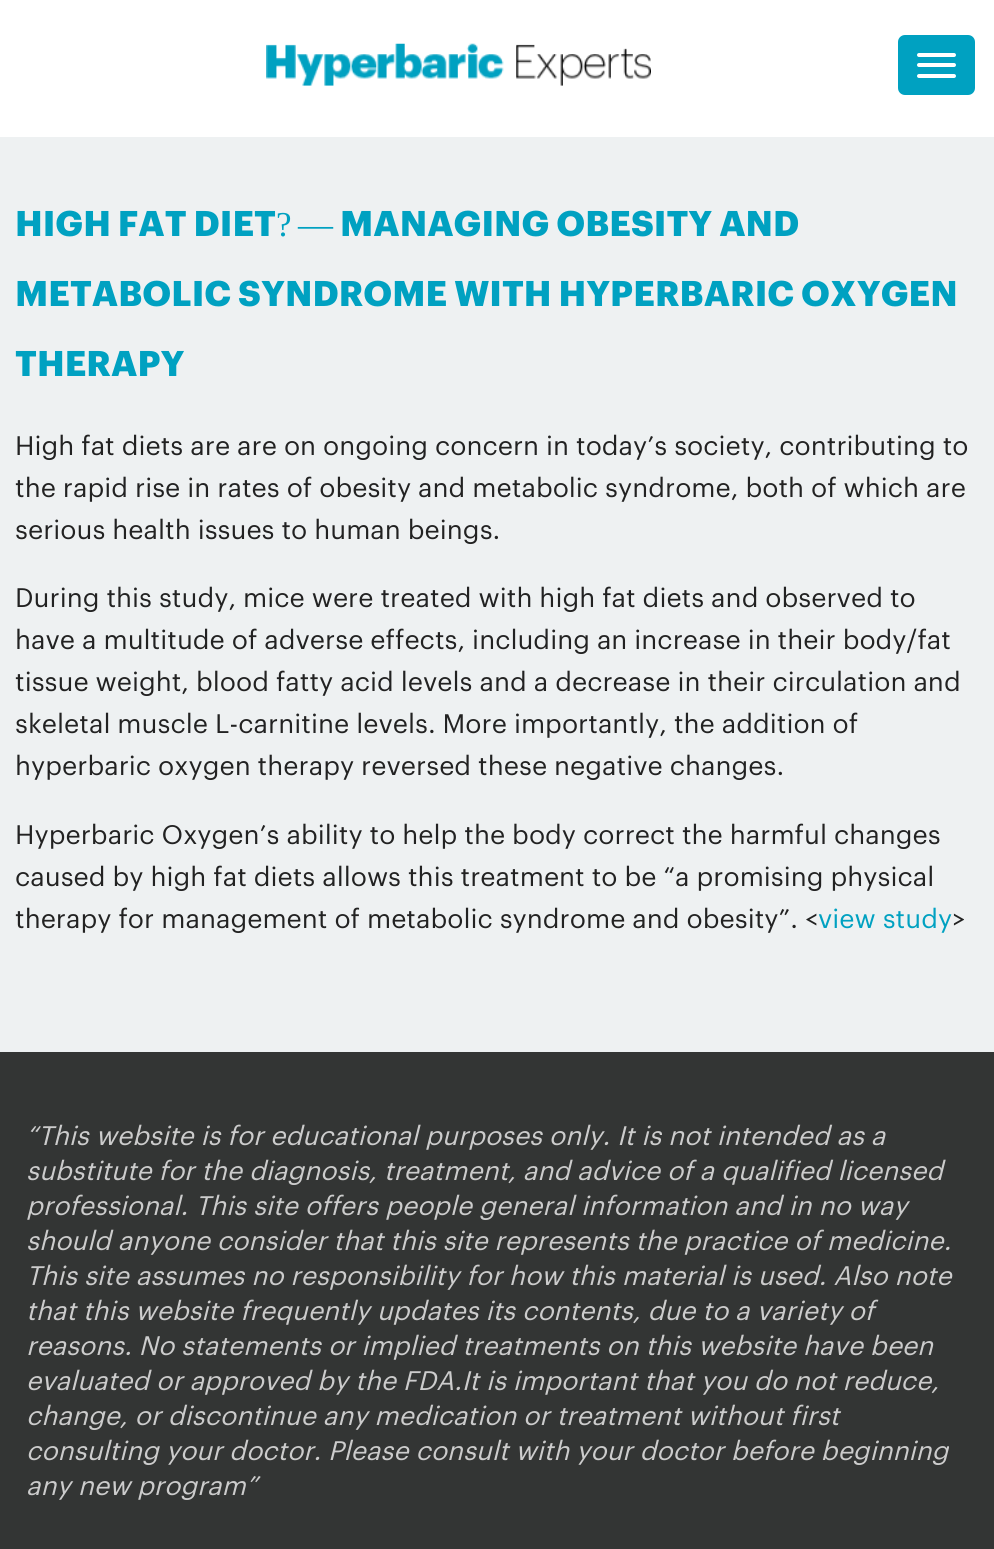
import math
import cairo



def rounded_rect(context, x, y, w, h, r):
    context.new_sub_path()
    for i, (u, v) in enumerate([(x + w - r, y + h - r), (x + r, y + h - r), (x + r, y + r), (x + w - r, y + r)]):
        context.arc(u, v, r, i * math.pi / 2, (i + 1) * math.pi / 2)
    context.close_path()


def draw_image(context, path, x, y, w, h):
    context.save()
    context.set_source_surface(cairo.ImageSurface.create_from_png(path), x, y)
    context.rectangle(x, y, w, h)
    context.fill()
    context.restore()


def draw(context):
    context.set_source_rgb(238 / 255, 241 / 255, 242 / 255)
    context.paint()
    context.set_source_rgb(1, 1, 1)
    context.rectangle(0, 0, 994, 137)
    context.fill()
    draw_image(context, "images/1.png", 266, 43, 385, 43)
    context.set_source_rgb(0, 161 / 255, 193 / 255)
    rounded_rect(context, 898, 35, 77, 60, 7)
    context.fill()
    context.set_source_rgb(1, 1, 1)
    rounded_rect(context, 917, 53, 39, 4, 2)
    context.fill()
    rounded_rect(context, 917, 63, 39, 4, 2)
    context.fill()
    rounded_rect(context, 917, 74, 39, 4, 2)
    context.fill()
    context.set_source_rgb(51 / 255, 53 / 255, 52 / 255)
    context.rectangle(0, 1052, 994, 497)
    context.fill()
    context.select_font_face("Graphik", cairo.FontSlant.NORMAL, cairo.FontWeight.BOLD)
    context.set_font_size(35)
    context.set_source_rgb(0, 161 / 255, 193 / 255)
    context.move_to(15, 236)
    context.show_text("HIGH FAT DIET")
    context.select_font_face("Liberation Serif")
    context.move_to(276, 236)
    context.show_text("?")
    context.move_to(298, 236)
    context.show_text("—")
    context.select_font_face("Graphik", cairo.FontSlant.NORMAL, cairo.FontWeight.BOLD)
    context.move_to(340, 236)
    context.show_text("MANAGING OBESITY AND")
    context.move_to(15, 306)
    context.show_text("METABOLIC SYNDROME WITH HYPERBARIC OXYGEN")
    context.move_to(15, 376)
    context.show_text("THERAPY")
    context.select_font_face("Graphik")
    context.set_font_size(26.25)
    context.set_source_rgb(34 / 255, 34 / 255, 34 / 255)
    context.move_to(15, 455)
    context.show_text("High fat diets are are on ongoing concern in today’s society, contributing to")
    context.move_to(15, 497)
    context.show_text("the rapid rise in rates of obesity and metabolic syndrome, both of which are")
    context.move_to(15, 539)
    context.show_text("serious health issues to human beings.")
    context.move_to(15, 607)
    context.show_text("During this study, mice were treated with high fat diets and observed to")
    context.move_to(15, 649)
    context.show_text("have a multitude of adverse effects, including an increase in their body/fat")
    context.move_to(15, 691)
    context.show_text("tissue weight, blood fatty acid levels and a decrease in their circulation and")
    context.move_to(15, 733)
    context.show_text("skeletal muscle L-carnitine levels. More importantly, the addition of")
    context.move_to(15, 775)
    context.show_text("hyperbaric oxygen therapy reversed these negative changes.")
    context.move_to(15, 844)
    context.show_text("Hyperbaric Oxygen’s ability to help the body correct the harmful changes")
    context.move_to(15, 886)
    context.show_text("caused by high fat diets allows this treatment to be “a promising physical")
    context.move_to(15, 928)
    context.show_text("therapy for management of metabolic syndrome and obesity”. <")
    context.set_source_rgb(0, 161 / 255, 193 / 255)
    context.move_to(818, 928)
    context.show_text("view study")
    context.set_source_rgb(34 / 255, 34 / 255, 34 / 255)
    context.move_to(952, 928)
    context.show_text(">")
    context.select_font_face("Graphik", cairo.FontSlant.ITALIC)
    context.set_source_rgb(204 / 255, 204 / 255, 204 / 255)
    context.move_to(26, 1145)
    context.show_text("“This website is for educational purposes only. It is not intended as a")
    context.move_to(26, 1180)
    context.show_text("substitute for the diagnosis, treatment, and advice of a qualified licensed")
    context.move_to(26, 1215)
    context.show_text("professional. This site offers people general information and in no way")
    context.move_to(26, 1250)
    context.show_text("should anyone consider that this site represents the practice of medicine.")
    context.move_to(26, 1285)
    context.show_text("This site assumes no responsibility for how this material is used. Also note")
    context.move_to(26, 1320)
    context.show_text("that this website frequently updates its contents, due to a variety of")
    context.move_to(26, 1355)
    context.show_text("reasons. No statements or implied treatments on this website have been")
    context.move_to(26, 1390)
    context.show_text("evaluated or approved by the FDA.It is important that you do not reduce,")
    context.move_to(26, 1425)
    context.show_text("change, or discontinue any medication or treatment without first")
    context.move_to(26, 1460)
    context.show_text("consulting your doctor. Please consult with your doctor before beginning")
    context.move_to(26, 1495)
    context.show_text("any new program”")


surface = cairo.ImageSurface(cairo.Format.RGB24, 994, 1549)
context = cairo.Context(surface)
options = cairo.FontOptions()
options.set_hint_metrics(cairo.HintMetrics.OFF)
options.set_hint_style(cairo.HintStyle.NONE)
context.set_font_options(options)
context.set_miter_limit(4)
draw(context)
surface.write_to_png("out.png")
